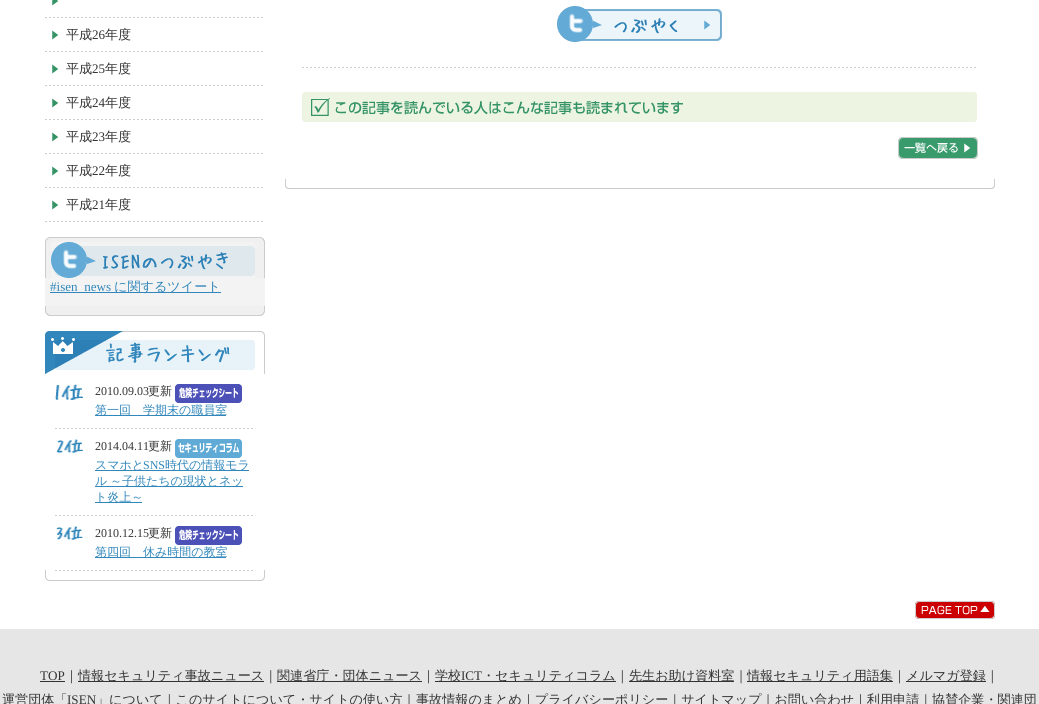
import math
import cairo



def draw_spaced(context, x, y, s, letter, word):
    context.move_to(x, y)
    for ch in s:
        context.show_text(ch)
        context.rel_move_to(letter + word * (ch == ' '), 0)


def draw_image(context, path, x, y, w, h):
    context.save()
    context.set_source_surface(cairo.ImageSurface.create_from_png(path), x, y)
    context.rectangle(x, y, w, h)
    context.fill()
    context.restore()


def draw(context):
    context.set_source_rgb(1, 1, 1)
    context.paint()
    draw_image(context, "images/1.png", 45, 17, 218, 1)
    draw_image(context, "images/2.png", 52, 0, 6, 6)
    draw_image(context, "images/1.png", 45, 51, 218, 1)
    draw_image(context, "images/3.png", 52, 30, 6, 10)
    draw_image(context, "images/1.png", 45, 85, 218, 1)
    draw_image(context, "images/3.png", 52, 64, 6, 10)
    draw_image(context, "images/1.png", 45, 119, 218, 1)
    draw_image(context, "images/3.png", 52, 98, 6, 10)
    draw_image(context, "images/1.png", 45, 153, 218, 1)
    draw_image(context, "images/3.png", 52, 132, 6, 10)
    draw_image(context, "images/1.png", 45, 187, 218, 1)
    draw_image(context, "images/3.png", 52, 166, 6, 10)
    draw_image(context, "images/1.png", 45, 221, 218, 1)
    draw_image(context, "images/3.png", 52, 200, 6, 10)
    context.set_source_rgb(243 / 255, 243 / 255, 243 / 255)
    context.rectangle(45, 278, 220, 28)
    context.fill()
    draw_image(context, "images/4.png", 45, 237, 220, 41)
    draw_image(context, "images/5.png", 45, 306, 220, 10)
    context.set_source_rgb(49 / 255, 135 / 255, 187 / 255)
    context.rectangle(50, 292, 171, 1)
    context.fill()
    draw_image(context, "images/6.png", 45, 331, 220, 43)
    draw_image(context, "images/7.png", 45, 570, 220, 11)
    draw_image(context, "images/8.png", 55, 428, 198, 1)
    draw_image(context, "images/9.png", 55, 384, 28, 16)
    draw_image(context, "images/10.png", 175, 384, 67, 19)
    context.rectangle(95, 415, 131, 1)
    context.fill()
    draw_image(context, "images/8.png", 55, 515, 198, 1)
    draw_image(context, "images/11.png", 56, 439, 27, 14)
    draw_image(context, "images/12.png", 175, 439, 67, 19)
    context.rectangle(95, 470, 154, 1)
    context.fill()
    context.rectangle(95, 486, 148, 1)
    context.fill()
    context.rectangle(95, 502, 47, 1)
    context.fill()
    draw_image(context, "images/8.png", 55, 570, 198, 1)
    draw_image(context, "images/13.png", 56, 526, 27, 14)
    draw_image(context, "images/10.png", 175, 526, 67, 19)
    context.rectangle(95, 557, 131, 1)
    context.fill()
    draw_image(context, "images/14.png", 285, 179, 710, 10)
    draw_image(context, "images/15.png", 557, 6, 165, 36)
    draw_image(context, "images/16.png", 302, 67, 674, 1)
    draw_image(context, "images/17.png", 302, 92, 675, 30)
    draw_image(context, "images/18.png", 898, 137, 80, 22)
    draw_image(context, "images/19.png", 915, 601, 80, 18)
    context.set_source_rgb(230 / 255, 230 / 255, 230 / 255)
    context.rectangle(0, 629, 1039, 75)
    context.fill()
    context.set_source_rgb(51 / 255, 51 / 255, 51 / 255)
    context.rectangle(40, 681, 25, 1)
    context.fill()
    context.rectangle(78, 681, 186, 1)
    context.fill()
    context.rectangle(277, 681, 145, 1)
    context.fill()
    context.rectangle(435, 681, 181, 1)
    context.fill()
    context.rectangle(629, 681, 105, 1)
    context.fill()
    context.rectangle(747, 681, 146, 1)
    context.fill()
    context.rectangle(906, 681, 80, 1)
    context.fill()
    context.select_font_face("WenQuanYi Zen Hei Medium")
    context.set_font_size(13.1)
    context.move_to(66, 39)
    context.show_text("平成")
    context.select_font_face("Liberation Serif")
    context.move_to(92, 39)
    context.show_text("26")
    context.select_font_face("WenQuanYi Zen Hei Medium")
    context.move_to(105, 39)
    context.show_text("年度")
    context.move_to(66, 73)
    context.show_text("平成")
    context.select_font_face("Liberation Serif")
    context.move_to(92, 73)
    context.show_text("25")
    context.select_font_face("WenQuanYi Zen Hei Medium")
    context.move_to(105, 73)
    context.show_text("年度")
    context.move_to(66, 107)
    context.show_text("平成")
    context.select_font_face("Liberation Serif")
    context.move_to(92, 107)
    context.show_text("24")
    context.select_font_face("WenQuanYi Zen Hei Medium")
    context.move_to(105, 107)
    context.show_text("年度")
    context.move_to(66, 141)
    context.show_text("平成")
    context.select_font_face("Liberation Serif")
    context.move_to(92, 141)
    context.show_text("23")
    context.select_font_face("WenQuanYi Zen Hei Medium")
    context.move_to(105, 141)
    context.show_text("年度")
    context.move_to(66, 175)
    context.show_text("平成")
    context.select_font_face("Liberation Serif")
    context.move_to(92, 175)
    context.show_text("22")
    context.select_font_face("WenQuanYi Zen Hei Medium")
    context.move_to(105, 175)
    context.show_text("年度")
    context.move_to(66, 209)
    context.show_text("平成")
    context.select_font_face("Liberation Serif")
    context.move_to(92, 209)
    context.show_text("21")
    context.select_font_face("WenQuanYi Zen Hei Medium")
    context.move_to(105, 209)
    context.show_text("年度")
    context.select_font_face("Liberation Serif")
    context.set_source_rgb(49 / 255, 135 / 255, 187 / 255)
    context.move_to(50, 291)
    context.show_text("#isen_news")
    context.select_font_face("WenQuanYi Zen Hei Medium")
    context.move_to(114, 291)
    context.show_text("に関するツイート")
    context.select_font_face("Liberation Serif")
    context.set_font_size(12)
    context.set_source_rgb(51 / 255, 51 / 255, 51 / 255)
    context.move_to(95, 395)
    context.show_text("2010.09.03")
    context.select_font_face("WenQuanYi Zen Hei Medium")
    context.move_to(148, 395)
    context.show_text("更新")
    context.set_source_rgb(49 / 255, 135 / 255, 187 / 255)
    context.move_to(95, 414)
    context.show_text("第一回　学期末の職員室")
    context.select_font_face("Liberation Serif")
    context.set_source_rgb(51 / 255, 51 / 255, 51 / 255)
    context.move_to(95, 450)
    context.show_text("2014.04.11")
    context.select_font_face("WenQuanYi Zen Hei Medium")
    context.move_to(148, 450)
    context.show_text("更新")
    context.set_source_rgb(49 / 255, 135 / 255, 187 / 255)
    context.move_to(95, 469)
    context.show_text("スマホと")
    context.select_font_face("Liberation Serif")
    context.move_to(143, 469)
    context.show_text("SNS")
    context.select_font_face("WenQuanYi Zen Hei Medium")
    context.move_to(165, 469)
    context.show_text("時代の情報モラ")
    draw_spaced(context, 95, 485, "ル ～子供たちの現状とネッ", 0, -1)
    context.move_to(95, 501)
    context.show_text("ト炎上～")
    context.select_font_face("Liberation Serif")
    context.set_source_rgb(51 / 255, 51 / 255, 51 / 255)
    context.move_to(95, 537)
    context.show_text("2010.12.15")
    context.select_font_face("WenQuanYi Zen Hei Medium")
    context.move_to(148, 537)
    context.show_text("更新")
    context.set_source_rgb(49 / 255, 135 / 255, 187 / 255)
    context.move_to(95, 556)
    context.show_text("第四回　休み時間の教室")
    context.select_font_face("Liberation Serif")
    context.set_font_size(13.1)
    context.set_source_rgb(51 / 255, 51 / 255, 51 / 255)
    context.move_to(40, 680)
    context.show_text("TOP")
    context.select_font_face("WenQuanYi Zen Hei Medium")
    context.move_to(65, 680)
    context.show_text("｜")
    context.move_to(78, 680)
    context.show_text("情報セキュリティ事故ニュース｜")
    context.move_to(277, 680)
    context.show_text("関連省庁・団体ニュース｜")
    context.move_to(435, 680)
    context.show_text("学校")
    context.select_font_face("Liberation Serif")
    context.move_to(461, 680)
    context.show_text("ICT")
    context.select_font_face("WenQuanYi Zen Hei Medium")
    context.move_to(482, 680)
    context.show_text("・セキュリティコラム｜")
    context.move_to(629, 680)
    context.show_text("先生お助け資料室｜")
    context.move_to(747, 680)
    context.show_text("情報セキュリティ用語集｜")
    context.move_to(906, 680)
    context.show_text("メルマガ登録｜")
    context.move_to(2, 704)
    context.show_text("運営団体「")
    context.select_font_face("Liberation Serif")
    context.move_to(67, 704)
    context.show_text("ISEN")
    context.select_font_face("WenQuanYi Zen Hei Medium")
    context.move_to(96, 704)
    context.show_text("」について｜このサイトについて・サイトの使い方｜")
    context.move_to(416, 704)
    context.show_text("事故情報のまとめ｜プライバシーポリシー｜サイトマップ｜お問い合わせ")
    context.move_to(854, 704)
    context.show_text("｜利用申請｜協賛企業・関連団")


surface = cairo.ImageSurface(cairo.Format.RGB24, 1039, 704)
context = cairo.Context(surface)
options = cairo.FontOptions()
options.set_hint_metrics(cairo.HintMetrics.OFF)
options.set_hint_style(cairo.HintStyle.NONE)
context.set_font_options(options)
context.set_miter_limit(4)
draw(context)
surface.write_to_png("out.png")
